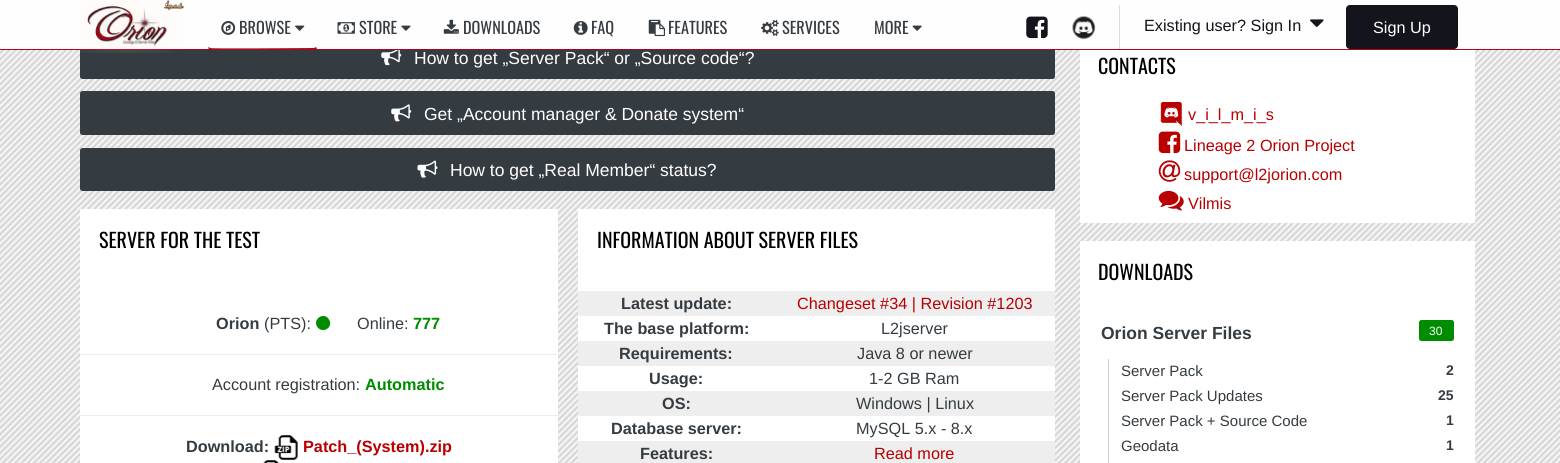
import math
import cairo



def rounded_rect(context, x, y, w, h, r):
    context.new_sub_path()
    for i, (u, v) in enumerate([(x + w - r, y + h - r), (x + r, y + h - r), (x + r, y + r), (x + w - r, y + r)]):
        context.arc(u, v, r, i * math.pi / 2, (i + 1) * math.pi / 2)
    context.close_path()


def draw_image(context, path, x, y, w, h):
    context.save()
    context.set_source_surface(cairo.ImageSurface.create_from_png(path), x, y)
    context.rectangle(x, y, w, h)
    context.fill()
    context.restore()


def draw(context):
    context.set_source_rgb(209 / 255, 209 / 255, 209 / 255)
    context.paint()
    draw_image(context, "images/1.png", 0, 50, 1560, 413)
    context.set_source_rgb(53 / 255, 60 / 255, 65 / 255)
    rounded_rect(context, 80, 35, 975, 44, 2.5)
    context.fill()
    context.set_source_rgb(254 / 255, 254 / 255, 254 / 255)
    context.rectangle(0, 0, 1560, 49)
    context.fill()
    context.set_source_rgb(173 / 255, 5 / 255, 29 / 255)
    context.rectangle(0, 49, 1560, 1)
    context.fill()
    draw_image(context, "images/2.png", 80, 0, 105, 53)
    context.new_path()
    context.move_to(211, 50)
    context.line_to(314, 50)
    context.line_to(317, 49)
    context.line_to(316, 47)
    context.line_to(314, 48)
    context.curve_to(304, 48, 211, 49, 210, 48)
    context.line_to(209, 47)
    context.line_to(208, 48)
    context.curve_to(209, 49, 210, 50, 211, 50)
    context.close_path()
    context.fill()
    draw_image(context, "images/3.png", 221, 21, 15, 14)
    draw_image(context, "images/4.png", 295, 25, 10, 6)
    draw_image(context, "images/5.png", 337, 22, 18, 12)
    draw_image(context, "images/6.png", 401, 25, 10, 6)
    draw_image(context, "images/7.png", 443, 19, 16, 15)
    draw_image(context, "images/8.png", 573, 21, 15, 14)
    draw_image(context, "images/9.png", 648, 19, 17, 18)
    draw_image(context, "images/10.png", 761, 20, 18, 16)
    draw_image(context, "images/11.png", 912, 25, 10, 6)
    draw_image(context, "images/12.png", 1026, 16, 22, 23)
    draw_image(context, "images/13.png", 1071, 15, 25, 25)
    context.set_source_rgb(220 / 255, 220 / 255, 222 / 255)
    context.rectangle(1119, 5, 1, 44)
    context.fill()
    draw_image(context, "images/14.png", 1310, 19, 14, 8)
    context.set_source_rgb(20 / 255, 20 / 255, 28 / 255)
    rounded_rect(context, 1346, 5, 112, 44, 4)
    context.fill()
    rounded_rect(context, 1346.5, 5.5, 111, 43, 3.5)
    context.set_source_rgba(0, 0, 0, 0.1)
    context.set_line_width(1)
    context.stroke()
    draw_image(context, "images/15.png", 381, 50, 21, 16)
    context.set_source_rgb(53 / 255, 60 / 255, 65 / 255)
    rounded_rect(context, 80, 91, 975, 44, 2.5)
    context.fill()
    draw_image(context, "images/16.png", 391, 104, 21, 18)
    rounded_rect(context, 80, 148, 975, 43, 2.5)
    context.fill()
    draw_image(context, "images/17.png", 417, 160, 21, 18)
    context.set_source_rgb(1, 1, 1)
    context.rectangle(80, 209, 478, 254)
    context.fill()
    context.set_source_rgb(0, 140 / 255, 0)
    context.new_path()
    context.move_to(329, 319.5)
    context.curve_to(334, 327.5, 322, 334.5, 317, 326.5)
    context.curve_to(312.5, 318.5, 324.5, 311.5, 329, 319.5)
    context.close_path()
    context.fill()
    context.set_source_rgb(236 / 255, 236 / 255, 236 / 255)
    context.rectangle(80, 354, 478, 1)
    context.fill()
    context.rectangle(80, 415, 478, 1)
    context.fill()
    draw_image(context, "images/18.png", 274, 435, 24, 25)
    draw_image(context, "images/19.png", 263, 460, 16, 3)
    context.set_source_rgb(1, 1, 1)
    context.rectangle(578, 209, 477, 82)
    context.fill()
    context.set_source_rgb(238 / 255, 238 / 255, 238 / 255)
    context.rectangle(578, 291, 477, 25)
    context.fill()
    context.set_source_rgb(1, 1, 1)
    context.rectangle(578, 316, 477, 25)
    context.fill()
    context.set_source_rgb(238 / 255, 238 / 255, 238 / 255)
    context.rectangle(578, 341, 477, 25)
    context.fill()
    context.set_source_rgb(1, 1, 1)
    context.rectangle(578, 366, 477, 25)
    context.fill()
    context.set_source_rgb(238 / 255, 238 / 255, 238 / 255)
    context.rectangle(578, 391, 477, 25)
    context.fill()
    context.set_source_rgb(1, 1, 1)
    context.rectangle(578, 416, 477, 25)
    context.fill()
    context.set_source_rgb(238 / 255, 238 / 255, 238 / 255)
    context.rectangle(578, 441, 477, 22)
    context.fill()
    context.set_source_rgb(1, 1, 1)
    context.rectangle(1080, 50, 395, 173)
    context.fill()
    draw_image(context, "images/20.png", 1159, 101, 25, 26)
    draw_image(context, "images/21.png", 1158, 131, 23, 23)
    draw_image(context, "images/22.png", 1158, 160, 23, 22)
    draw_image(context, "images/23.png", 1158, 190, 26, 21)
    context.rectangle(1080, 241, 395, 222)
    context.fill()
    context.set_source_rgb(0, 140 / 255, 0)
    rounded_rect(context, 1419, 320, 35, 21, 2.5)
    context.fill()
    context.set_source_rgb(204 / 255, 204 / 255, 204 / 255)
    context.rectangle(1108, 359, 1, 104)
    context.fill()
    context.select_font_face("Oswald")
    context.set_font_size(16.25)
    context.set_source_rgb(53 / 255, 60 / 255, 65 / 255)
    context.move_to(239, 34)
    context.show_text("BROWSE")
    context.move_to(359, 34)
    context.show_text("STORE")
    context.move_to(463, 34)
    context.show_text("DOWNLOADS")
    context.move_to(591, 34)
    context.show_text("FAQ")
    context.move_to(668, 34)
    context.show_text("FEATURES")
    context.move_to(782, 34)
    context.show_text("SERVICES")
    context.move_to(874, 34)
    context.show_text("MORE")
    context.select_font_face("Liberation Sans")
    context.set_source_rgb(20 / 255, 20 / 255, 28 / 255)
    context.move_to(1144, 31)
    context.show_text("Existing user? Sign In")
    context.set_source_rgb(1, 1, 1)
    context.move_to(1373, 33)
    context.show_text("Sign Up")
    context.set_font_size(17.5)
    context.move_to(414, 64)
    context.show_text("How to get „Server Pack“ or „Source code“?")
    context.move_to(424, 120)
    context.show_text("Get „Account manager & Donate system“")
    context.move_to(450, 176)
    context.show_text("How to get „Real Member“ status?")
    context.select_font_face("Oswald")
    context.set_font_size(20)
    context.set_source_rgb(0, 0, 0)
    context.move_to(99, 248)
    context.show_text("SERVER FOR THE TEST")
    context.select_font_face("Liberation Sans", cairo.FontSlant.NORMAL, cairo.FontWeight.BOLD)
    context.set_font_size(16.25)
    context.set_source_rgb(53 / 255, 60 / 255, 65 / 255)
    context.move_to(216, 329)
    context.show_text("Orion")
    context.select_font_face("Liberation Sans")
    context.move_to(264, 329)
    context.show_text("(PTS):")
    context.move_to(357, 329)
    context.show_text("Online:")
    context.select_font_face("Liberation Sans", cairo.FontSlant.NORMAL, cairo.FontWeight.BOLD)
    context.set_source_rgb(0, 140 / 255, 0)
    context.move_to(413, 329)
    context.show_text("777")
    context.select_font_face("Liberation Sans")
    context.set_source_rgb(53 / 255, 60 / 255, 65 / 255)
    context.move_to(212, 390)
    context.show_text("Account registration:")
    context.select_font_face("Liberation Sans", cairo.FontSlant.NORMAL, cairo.FontWeight.BOLD)
    context.set_source_rgb(0, 140 / 255, 0)
    context.move_to(365, 390)
    context.show_text("Automatic")
    context.set_source_rgb(53 / 255, 60 / 255, 65 / 255)
    context.move_to(186, 452)
    context.show_text("Download:")
    context.set_source_rgb(184 / 255, 0, 0)
    context.move_to(303, 452)
    context.show_text("Patch_(System).zip")
    context.select_font_face("Oswald")
    context.set_font_size(20)
    context.set_source_rgb(0, 0, 0)
    context.move_to(597, 248)
    context.show_text("INFORMATION ABOUT SERVER FILES")
    context.select_font_face("Liberation Sans", cairo.FontSlant.NORMAL, cairo.FontWeight.BOLD)
    context.set_font_size(16.25)
    context.set_source_rgb(53 / 255, 60 / 255, 65 / 255)
    context.move_to(621, 309)
    context.show_text("Latest update:")
    context.select_font_face("Liberation Sans")
    context.set_source_rgb(184 / 255, 0, 0)
    context.move_to(797, 309)
    context.show_text("Changeset #34 | Revision #1203")
    context.select_font_face("Liberation Sans", cairo.FontSlant.NORMAL, cairo.FontWeight.BOLD)
    context.set_source_rgb(53 / 255, 60 / 255, 65 / 255)
    context.move_to(604, 334)
    context.show_text("The base platform:")
    context.select_font_face("Liberation Sans")
    context.move_to(881, 334)
    context.show_text("L2jserver")
    context.select_font_face("Liberation Sans", cairo.FontSlant.NORMAL, cairo.FontWeight.BOLD)
    context.move_to(619, 359)
    context.show_text("Requirements:")
    context.select_font_face("Liberation Sans")
    context.move_to(857, 359)
    context.show_text("Java 8 or newer")
    context.select_font_face("Liberation Sans", cairo.FontSlant.NORMAL, cairo.FontWeight.BOLD)
    context.move_to(649, 384)
    context.show_text("Usage:")
    context.select_font_face("Liberation Sans")
    context.move_to(869, 384)
    context.show_text("1-2 GB Ram")
    context.select_font_face("Liberation Sans", cairo.FontSlant.NORMAL, cairo.FontWeight.BOLD)
    context.move_to(662, 409)
    context.show_text("OS:")
    context.select_font_face("Liberation Sans")
    context.move_to(856, 409)
    context.show_text("Windows | Linux")
    context.select_font_face("Liberation Sans", cairo.FontSlant.NORMAL, cairo.FontWeight.BOLD)
    context.move_to(611, 434)
    context.show_text("Database server:")
    context.select_font_face("Liberation Sans")
    context.move_to(856, 434)
    context.show_text("MySQL 5.x - 8.x")
    context.select_font_face("Liberation Sans", cairo.FontSlant.NORMAL, cairo.FontWeight.BOLD)
    context.move_to(640, 459)
    context.show_text("Features:")
    context.select_font_face("Liberation Sans")
    context.set_source_rgb(184 / 255, 0, 0)
    context.move_to(874, 459)
    context.show_text("Read more")
    context.select_font_face("Oswald")
    context.set_font_size(20)
    context.set_source_rgb(0, 0, 0)
    context.move_to(1098, 74)
    context.show_text("CONTACTS")
    context.select_font_face("Liberation Sans")
    context.set_font_size(16.25)
    context.set_source_rgb(184 / 255, 0, 0)
    context.move_to(1188, 120)
    context.show_text("v_i_l_m_i_s")
    context.move_to(1184, 151)
    context.show_text("Lineage 2 Orion Project")
    context.move_to(1184, 180)
    context.show_text("support@l2jorion.com")
    context.move_to(1188, 209)
    context.show_text("Vilmis")
    context.select_font_face("Oswald")
    context.set_font_size(20)
    context.set_source_rgb(0, 0, 0)
    context.move_to(1098, 280)
    context.show_text("DOWNLOADS")
    context.select_font_face("Liberation Sans", cairo.FontSlant.NORMAL, cairo.FontWeight.BOLD)
    context.set_font_size(17.5)
    context.set_source_rgb(53 / 255, 60 / 255, 65 / 255)
    context.move_to(1101, 339)
    context.show_text("Orion Server Files")
    context.select_font_face("Liberation Sans")
    context.set_font_size(12)
    context.set_source_rgb(1, 1, 1)
    context.move_to(1429, 335)
    context.show_text("30")
    context.set_font_size(15)
    context.set_source_rgb(53 / 255, 60 / 255, 65 / 255)
    context.move_to(1121, 376)
    context.show_text("Server Pack")
    context.select_font_face("Liberation Sans", cairo.FontSlant.NORMAL, cairo.FontWeight.BOLD)
    context.set_font_size(14)
    context.move_to(1446, 375)
    context.show_text("2")
    context.select_font_face("Liberation Sans")
    context.set_font_size(15)
    context.move_to(1121, 401)
    context.show_text("Server Pack Updates")
    context.select_font_face("Liberation Sans", cairo.FontSlant.NORMAL, cairo.FontWeight.BOLD)
    context.set_font_size(14)
    context.move_to(1438, 400)
    context.show_text("25")
    context.select_font_face("Liberation Sans")
    context.set_font_size(15)
    context.move_to(1121, 426)
    context.show_text("Server Pack + Source Code")
    context.select_font_face("Liberation Sans", cairo.FontSlant.NORMAL, cairo.FontWeight.BOLD)
    context.set_font_size(14)
    context.move_to(1446, 425)
    context.show_text("1")
    context.select_font_face("Liberation Sans")
    context.set_font_size(15)
    context.move_to(1121, 451)
    context.show_text("Geodata")
    context.select_font_face("Liberation Sans", cairo.FontSlant.NORMAL, cairo.FontWeight.BOLD)
    context.set_font_size(14)
    context.move_to(1446, 450)
    context.show_text("1")


surface = cairo.ImageSurface(cairo.Format.RGB24, 1560, 463)
context = cairo.Context(surface)
options = cairo.FontOptions()
options.set_hint_metrics(cairo.HintMetrics.OFF)
options.set_hint_style(cairo.HintStyle.NONE)
context.set_font_options(options)
context.set_miter_limit(4)
draw(context)
surface.write_to_png("out.png")
